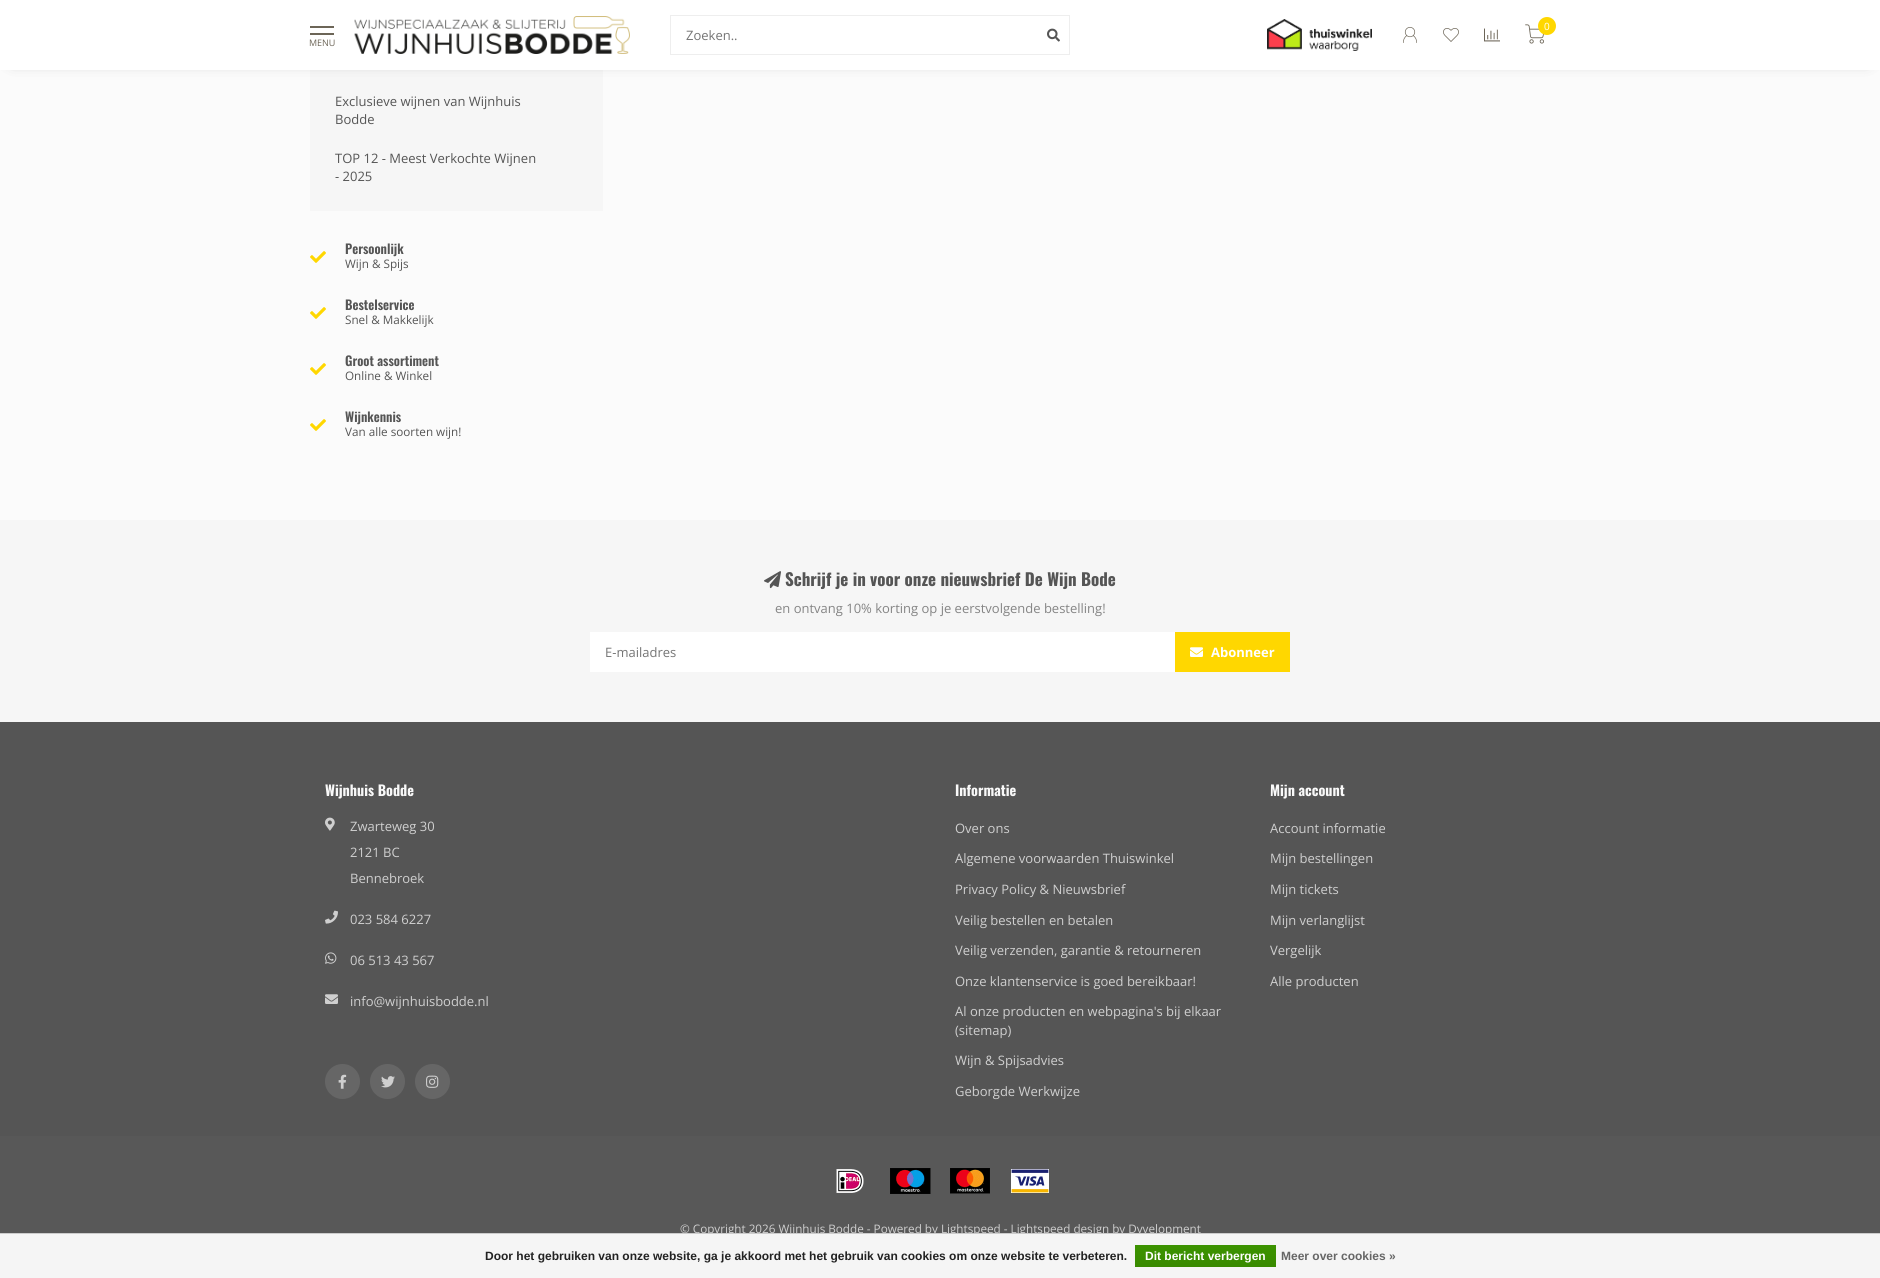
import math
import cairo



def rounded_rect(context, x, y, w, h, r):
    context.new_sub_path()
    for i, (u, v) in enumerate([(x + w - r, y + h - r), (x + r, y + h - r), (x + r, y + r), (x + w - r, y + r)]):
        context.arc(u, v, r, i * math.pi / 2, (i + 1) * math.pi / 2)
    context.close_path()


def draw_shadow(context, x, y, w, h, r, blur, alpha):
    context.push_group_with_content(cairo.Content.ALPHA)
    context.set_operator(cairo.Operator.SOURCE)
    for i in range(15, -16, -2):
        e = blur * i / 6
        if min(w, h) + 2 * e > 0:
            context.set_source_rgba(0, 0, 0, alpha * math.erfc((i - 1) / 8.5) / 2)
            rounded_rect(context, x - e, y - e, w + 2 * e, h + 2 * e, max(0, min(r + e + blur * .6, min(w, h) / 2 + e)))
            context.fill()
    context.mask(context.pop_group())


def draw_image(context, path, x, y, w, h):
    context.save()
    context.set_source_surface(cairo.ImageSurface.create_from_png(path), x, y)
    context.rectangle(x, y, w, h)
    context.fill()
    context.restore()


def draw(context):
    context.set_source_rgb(251 / 255, 251 / 255, 251 / 255)
    context.paint()
    context.set_source_rgb(246 / 255, 246 / 255, 246 / 255)
    context.rectangle(310, 70, 293, 141)
    context.fill()
    context.set_source_rgb(0, 0, 0)
    draw_shadow(context, 13, 13, 1854, 44, 0, 8, 0.8)
    context.set_source_rgb(1, 1, 1)
    context.rectangle(0, 0, 1880, 70)
    context.fill()
    draw_image(context, "images/1.png", 1267, 19, 105, 32)
    draw_image(context, "images/2.png", 1403, 27, 14, 16)
    draw_image(context, "images/3.png", 1443, 28, 16, 14)
    draw_image(context, "images/4.png", 1484, 28, 16, 14)
    draw_image(context, "images/5.png", 1525, 24, 19, 20)
    context.set_source_rgb(1, 215 / 255, 0)
    context.arc(1547, 26, 9, 0, 2 * math.pi)
    context.fill()
    context.rectangle(670.5, 15.5, 399, 39)
    context.set_source_rgb(238 / 255, 238 / 255, 238 / 255)
    context.set_line_width(1)
    context.stroke()
    draw_image(context, "images/6.png", 1047, 28, 13, 14)
    context.set_source_rgb(108 / 255, 101 / 255, 87 / 255)
    context.rectangle(310, 26, 24, 2)
    context.fill()
    context.rectangle(310, 33, 24, 2)
    context.fill()
    draw_image(context, "images/7.png", 354, 16, 276, 38)
    draw_image(context, "images/8.png", 310, 251, 16, 12)
    draw_image(context, "images/8.png", 310, 307, 16, 12)
    draw_image(context, "images/8.png", 310, 363, 16, 12)
    draw_image(context, "images/8.png", 310, 419, 16, 12)
    context.set_source_rgb(246 / 255, 246 / 255, 246 / 255)
    context.rectangle(0, 520, 1880, 202)
    context.fill()
    draw_image(context, "images/9.png", 764, 571, 17, 18)
    context.set_source_rgb(1, 1, 1)
    context.rectangle(590, 632, 585, 40)
    context.fill()
    context.set_source_rgb(1, 215 / 255, 0)
    context.rectangle(1175, 632, 115, 40)
    context.fill()
    draw_image(context, "images/10.png", 1190, 647, 13, 10)
    context.set_source_rgb(85 / 255, 85 / 255, 85 / 255)
    context.rectangle(0, 722, 1880, 414)
    context.fill()
    draw_image(context, "images/11.png", 325, 817, 10, 14)
    draw_image(context, "images/12.png", 325, 910, 13, 14)
    draw_image(context, "images/13.png", 325, 952, 12, 12)
    draw_image(context, "images/14.png", 325, 994, 13, 10)
    context.set_source_rgb(102 / 255, 102 / 255, 102 / 255)
    context.arc(342.5, 1081.5, 17.5, 0, 2 * math.pi)
    context.fill()
    draw_image(context, "images/15.png", 338, 1074, 9, 15)
    context.arc(387.5, 1081.5, 17.5, 0, 2 * math.pi)
    context.fill()
    draw_image(context, "images/16.png", 381, 1076, 14, 12)
    context.arc(432.5, 1081.5, 17.5, 0, 2 * math.pi)
    context.fill()
    draw_image(context, "images/17.png", 426, 1075, 13, 13)
    context.set_source_rgb(88 / 255, 88 / 255, 88 / 255)
    context.rectangle(0, 1136, 1880, 97)
    context.fill()
    draw_image(context, "images/18.png", 836, 1169, 28, 24)
    draw_image(context, "images/19.png", 890, 1168, 41, 26)
    draw_image(context, "images/20.png", 950, 1168, 40, 26)
    draw_image(context, "images/21.png", 1011, 1169, 38, 24)
    context.select_font_face("Open Sans")
    context.set_font_size(10)
    context.set_source_rgb(1, 1, 1)
    context.move_to(1544, 30)
    context.show_text("0")
    context.set_font_size(13)
    context.set_source_rgb(117 / 255, 117 / 255, 117 / 255)
    context.move_to(686, 40)
    context.show_text("Zoeken..")
    context.set_font_size(9)
    context.set_source_rgb(108 / 255, 101 / 255, 87 / 255)
    context.move_to(309, 46)
    context.show_text("MENU")
    context.set_font_size(13)
    context.set_source_rgb(85 / 255, 85 / 255, 85 / 255)
    context.move_to(335, 106)
    context.show_text("Exclusieve wijnen van Wijnhuis")
    context.move_to(335, 124)
    context.show_text("Bodde")
    context.move_to(335, 163)
    context.show_text("TOP 12 - Meest Verkochte Wijnen")
    context.move_to(335, 181)
    context.show_text("- 2025")
    context.select_font_face("Oswald SemiBold")
    context.move_to(345, 254)
    context.show_text("Persoonlijk")
    context.select_font_face("Open Sans")
    context.set_font_size(11.7)
    context.move_to(345, 268)
    context.show_text("Wijn & Spijs")
    context.select_font_face("Oswald SemiBold")
    context.set_font_size(13)
    context.move_to(345, 310)
    context.show_text("Bestelservice")
    context.select_font_face("Open Sans")
    context.set_font_size(11.7)
    context.move_to(345, 324)
    context.show_text("Snel & Makkelijk")
    context.select_font_face("Oswald SemiBold")
    context.set_font_size(13)
    context.move_to(345, 366)
    context.show_text("Groot assortiment")
    context.select_font_face("Open Sans")
    context.set_font_size(11.7)
    context.move_to(345, 380)
    context.show_text("Online & Winkel")
    context.select_font_face("Oswald SemiBold")
    context.set_font_size(13)
    context.move_to(345, 422)
    context.show_text("Wijnkennis")
    context.select_font_face("Open Sans")
    context.set_font_size(11.7)
    context.move_to(345, 436)
    context.show_text("Van alle soorten wijn!")
    context.select_font_face("Oswald", cairo.FontSlant.NORMAL, cairo.FontWeight.BOLD)
    context.set_font_size(17)
    context.move_to(785, 586)
    context.show_text("Schrijf je in voor onze nieuwsbrief De Wijn Bode")
    context.select_font_face("Open Sans")
    context.set_font_size(13)
    context.set_source_rgb(133 / 255, 133 / 255, 133 / 255)
    context.move_to(775, 613)
    context.show_text("en ontvang 10% korting op je eerstvolgende bestelling!")
    context.set_source_rgb(117 / 255, 117 / 255, 117 / 255)
    context.move_to(605, 657)
    context.show_text("E-mailadres")
    context.select_font_face("Open Sans", cairo.FontSlant.NORMAL, cairo.FontWeight.BOLD)
    context.set_source_rgb(1, 1, 1)
    context.move_to(1211, 657)
    context.show_text("Abonneer")
    context.select_font_face("Oswald", cairo.FontSlant.NORMAL, cairo.FontWeight.BOLD)
    context.set_font_size(14.25)
    context.set_source_rgb(249 / 255, 249 / 255, 249 / 255)
    context.move_to(325, 796)
    context.show_text("Wijnhuis Bodde")
    context.select_font_face("Open Sans")
    context.set_font_size(13)
    context.set_source_rgb(207 / 255, 207 / 255, 207 / 255)
    context.move_to(350, 831)
    context.show_text("Zwarteweg 30")
    context.move_to(350, 857)
    context.show_text("2121 BC")
    context.move_to(350, 883)
    context.show_text("Bennebroek")
    context.move_to(350, 924)
    context.show_text("023 584 6227")
    context.move_to(350, 965)
    context.show_text("06 513 43 567")
    context.move_to(350, 1006)
    context.show_text("info@wijnhuisbodde.nl")
    context.select_font_face("Oswald", cairo.FontSlant.NORMAL, cairo.FontWeight.BOLD)
    context.set_font_size(14.25)
    context.set_source_rgb(249 / 255, 249 / 255, 249 / 255)
    context.move_to(955, 796)
    context.show_text("Informatie")
    context.select_font_face("Open Sans")
    context.set_font_size(13)
    context.set_source_rgb(207 / 255, 207 / 255, 207 / 255)
    context.move_to(955, 833)
    context.show_text("Over ons")
    context.move_to(955, 863)
    context.show_text("Algemene voorwaarden Thuiswinkel")
    context.move_to(955, 894)
    context.show_text("Privacy Policy & Nieuwsbrief")
    context.move_to(955, 925)
    context.show_text("Veilig bestellen en betalen")
    context.move_to(955, 955)
    context.show_text("Veilig verzenden, garantie & retourneren")
    context.move_to(955, 986)
    context.show_text("Onze klantenservice is goed bereikbaar!")
    context.move_to(955, 1016)
    context.show_text("Al onze producten en webpagina's bij elkaar")
    context.move_to(955, 1035)
    context.show_text("(sitemap)")
    context.move_to(955, 1065)
    context.show_text("Wijn & Spijsadvies")
    context.move_to(955, 1096)
    context.show_text("Geborgde Werkwijze")
    context.select_font_face("Oswald", cairo.FontSlant.NORMAL, cairo.FontWeight.BOLD)
    context.set_font_size(14.25)
    context.set_source_rgb(249 / 255, 249 / 255, 249 / 255)
    context.move_to(1270, 796)
    context.show_text("Mijn account")
    context.select_font_face("Open Sans")
    context.set_font_size(13)
    context.set_source_rgb(207 / 255, 207 / 255, 207 / 255)
    context.move_to(1270, 833)
    context.show_text("Account informatie")
    context.move_to(1270, 863)
    context.show_text("Mijn bestellingen")
    context.move_to(1270, 894)
    context.show_text("Mijn tickets")
    context.move_to(1270, 925)
    context.show_text("Mijn verlanglijst")
    context.move_to(1270, 955)
    context.show_text("Vergelijk")
    context.move_to(1270, 986)
    context.show_text("Alle producten")
    context.set_font_size(11.7)
    context.move_to(680, 1233)
    context.show_text("© Copyright 2026 Wijnhuis Bodde - Powered by Lightspeed - Lightspeed design by Dyvelopment")
    context.set_source_rgb(245 / 255, 245 / 255, 245 / 255)
    context.rectangle(0, 1234, 1880, 44)
    context.fill()
    context.set_source_rgb(204 / 255, 204 / 255, 204 / 255)
    context.rectangle(0, 1233, 1880, 1)
    context.fill()
    context.select_font_face("Liberation Sans", cairo.FontSlant.NORMAL, cairo.FontWeight.BOLD)
    context.set_font_size(12)
    context.set_source_rgb(34 / 255, 34 / 255, 34 / 255)
    context.move_to(485, 1260)
    context.show_text("Door het gebruiken van onze website, ga je akkoord met het gebruik van cookies om onze website te verbeteren.")
    gradient = cairo.LinearGradient(1206, 1245, 1206, 1267)
    gradient.add_color_stop_rgba(0, 60 / 255, 147 / 255, 0, 1)
    gradient.add_color_stop_rgba(1, 57 / 255, 138 / 255, 0, 1)
    context.set_source(gradient)
    context.rectangle(1135, 1245, 141, 22)
    context.fill()
    context.set_source_rgb(1, 1, 1)
    context.move_to(1145, 1260)
    context.show_text("Dit bericht verbergen")
    context.set_source_rgb(102 / 255, 102 / 255, 102 / 255)
    context.move_to(1281, 1260)
    context.show_text("Meer over cookies »")


surface = cairo.ImageSurface(cairo.Format.RGB24, 1880, 1278)
context = cairo.Context(surface)
options = cairo.FontOptions()
options.set_hint_metrics(cairo.HintMetrics.OFF)
options.set_hint_style(cairo.HintStyle.NONE)
context.set_font_options(options)
context.set_miter_limit(4)
draw(context)
surface.write_to_png("out.png")
